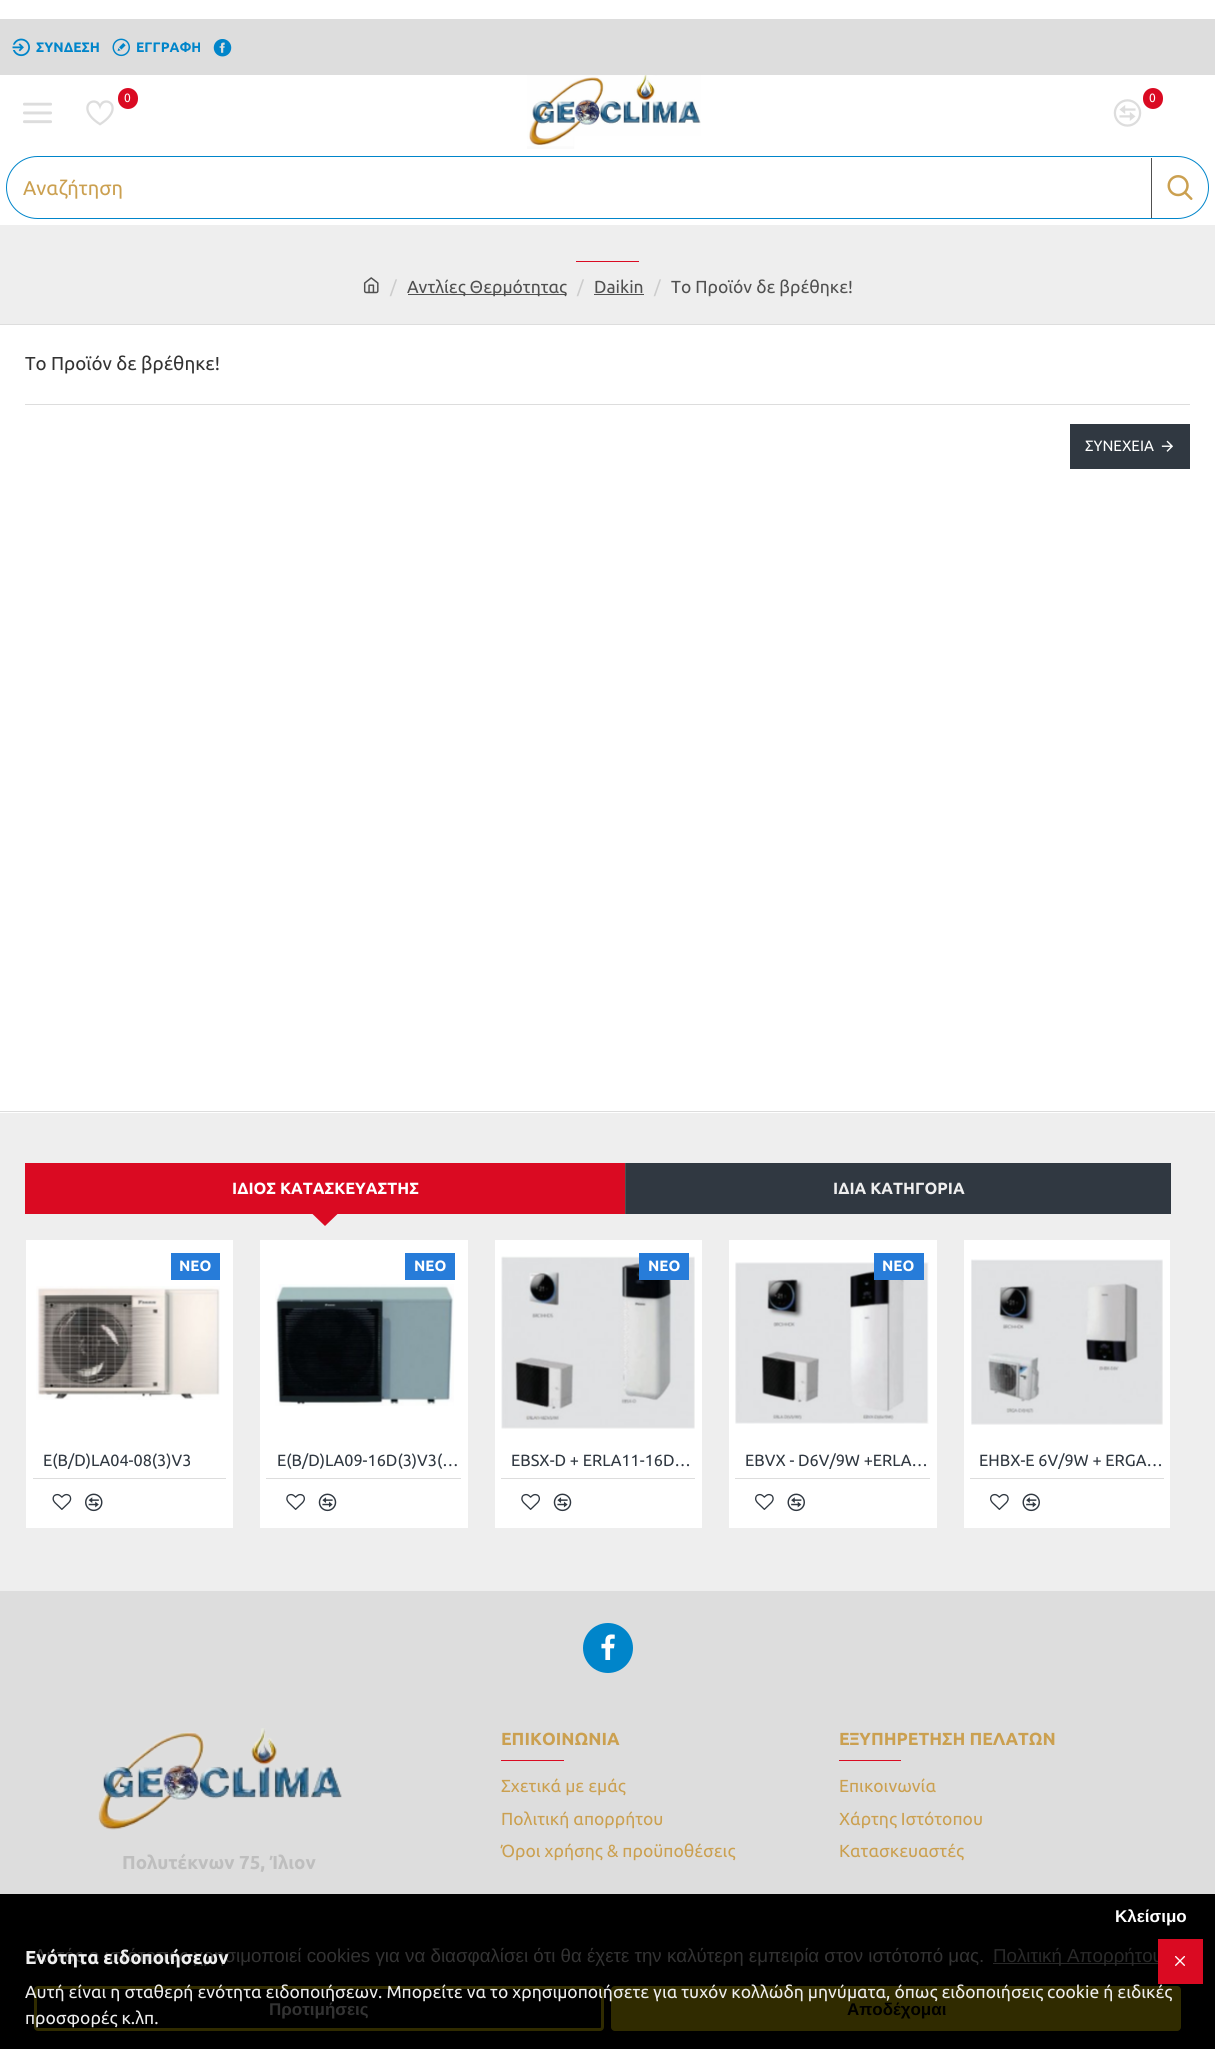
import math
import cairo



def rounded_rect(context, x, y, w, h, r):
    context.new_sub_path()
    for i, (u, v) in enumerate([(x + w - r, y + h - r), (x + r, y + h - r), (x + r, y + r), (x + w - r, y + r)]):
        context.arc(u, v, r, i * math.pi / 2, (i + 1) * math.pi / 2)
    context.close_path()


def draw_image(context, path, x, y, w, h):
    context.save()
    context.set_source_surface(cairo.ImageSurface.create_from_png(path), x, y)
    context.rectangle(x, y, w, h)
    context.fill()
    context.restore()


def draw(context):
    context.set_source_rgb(1, 1, 1)
    context.paint()
    context.set_source_rgb(221 / 255, 221 / 255, 221 / 255)
    context.rectangle(0, 19, 1215, 56)
    context.fill()
    draw_image(context, "images/1.png", 12, 38, 18, 19)
    draw_image(context, "images/2.png", 112, 38, 18, 19)
    draw_image(context, "images/3.png", 213, 39, 19, 18)
    context.set_source_rgb(218 / 255, 10 / 255, 34 / 255)
    rounded_rect(context, 118, 88, 20, 21, 10)
    context.fill()
    draw_image(context, "images/4.png", 86, 100, 28, 26)
    draw_image(context, "images/5.png", 527, 75, 174, 74)
    rounded_rect(context, 1143, 88, 20, 21, 10)
    context.fill()
    draw_image(context, "images/6.png", 1113, 99, 29, 28)
    draw_image(context, "images/7.png", 23, 102, 29, 22)
    rounded_rect(context, 6.5, 156.5, 1202, 62, 31)
    context.set_source_rgb(0, 133 / 255, 202 / 255)
    context.set_line_width(1)
    context.stroke()
    context.set_source_rgb(80 / 255, 80 / 255, 80 / 255)
    context.rectangle(1151, 158, 1, 60)
    context.fill()
    draw_image(context, "images/8.png", 1167, 175, 26, 25)
    context.set_source_rgb(238 / 255, 238 / 255, 238 / 255)
    context.rectangle(0, 225, 1215, 99)
    context.fill()
    context.set_source_rgb(218 / 255, 10 / 255, 34 / 255)
    context.rectangle(576, 261, 63, 1)
    context.fill()
    context.set_source_rgb(221 / 255, 221 / 255, 221 / 255)
    context.rectangle(0, 324, 1215, 1)
    context.fill()
    draw_image(context, "images/9.png", 363, 277, 16, 17)
    context.set_source_rgb(80 / 255, 80 / 255, 80 / 255)
    context.rectangle(408, 294, 158, 1)
    context.fill()
    context.rectangle(594, 294, 50, 1)
    context.fill()
    context.set_source_rgb(221 / 255, 221 / 255, 221 / 255)
    context.rectangle(25, 404, 1165, 1)
    context.fill()
    context.set_source_rgb(48 / 255, 56 / 255, 65 / 255)
    context.rectangle(1070, 424, 120, 45)
    context.fill()
    draw_image(context, "images/10.png", 1161, 440, 12, 12)
    context.set_source_rgb(238 / 255, 238 / 255, 238 / 255)
    context.rectangle(0, 1113, 1215, 478)
    context.fill()
    context.set_source_rgb(221 / 255, 221 / 255, 221 / 255)
    context.rectangle(0, 1111, 1215, 1)
    context.fill()
    context.set_source_rgb(218 / 255, 10 / 255, 34 / 255)
    context.rectangle(25, 1163, 600, 51)
    context.fill()
    context.new_path()
    context.move_to(312.5, 1214)
    context.line_to(337.5, 1214)
    context.line_to(325, 1226)
    context.close_path()
    context.fill()
    context.set_source_rgb(80 / 255, 80 / 255, 80 / 255)
    context.rectangle(625, 1163, 1, 51)
    context.fill()
    context.set_source_rgb(48 / 255, 56 / 255, 65 / 255)
    context.rectangle(626, 1163, 545, 51)
    context.fill()
    context.set_source_rgb(1, 1, 1)
    context.rectangle(26, 1240, 207, 288)
    context.fill()
    context.set_source_rgb(39 / 255, 124 / 255, 217 / 255)
    context.rectangle(171, 1253, 49, 27)
    context.fill()
    draw_image(context, "images/11.png", 36, 1286, 184, 114)
    context.set_source_rgb(221 / 255, 221 / 255, 221 / 255)
    context.rectangle(33, 1478, 193, 1)
    context.fill()
    draw_image(context, "images/12.png", 52, 1493, 20, 17)
    draw_image(context, "images/13.png", 85, 1493, 18, 19)
    context.set_source_rgb(1, 1, 1)
    context.rectangle(260, 1240, 208, 288)
    context.fill()
    context.set_source_rgb(39 / 255, 124 / 255, 217 / 255)
    context.rectangle(405, 1253, 50, 27)
    context.fill()
    draw_image(context, "images/14.png", 275, 1284, 179, 122)
    context.set_source_rgb(221 / 255, 221 / 255, 221 / 255)
    context.rectangle(266, 1478, 195, 1)
    context.fill()
    draw_image(context, "images/15.png", 286, 1493, 19, 17)
    draw_image(context, "images/16.png", 318, 1493, 19, 19)
    context.set_source_rgb(1, 1, 1)
    context.rectangle(495, 1240, 207, 288)
    context.fill()
    draw_image(context, "images/17.png", 501, 1256, 194, 173)
    context.set_source_rgb(39 / 255, 124 / 255, 217 / 255)
    context.rectangle(639, 1253, 50, 27)
    context.fill()
    context.set_source_rgb(221 / 255, 221 / 255, 221 / 255)
    context.rectangle(501, 1478, 194, 1)
    context.fill()
    draw_image(context, "images/15.png", 521, 1493, 19, 17)
    draw_image(context, "images/16.png", 553, 1493, 19, 19)
    context.set_source_rgb(1, 1, 1)
    context.rectangle(729, 1240, 208, 288)
    context.fill()
    draw_image(context, "images/18.png", 735, 1262, 194, 162)
    context.set_source_rgb(39 / 255, 124 / 255, 217 / 255)
    context.rectangle(874, 1253, 50, 27)
    context.fill()
    context.set_source_rgb(221 / 255, 221 / 255, 221 / 255)
    context.rectangle(735, 1478, 195, 1)
    context.fill()
    draw_image(context, "images/19.png", 755, 1493, 19, 17)
    draw_image(context, "images/20.png", 787, 1493, 18, 19)
    context.set_source_rgb(1, 1, 1)
    context.rectangle(964, 1240, 206, 288)
    context.fill()
    draw_image(context, "images/21.png", 971, 1259, 192, 166)
    context.set_source_rgb(221 / 255, 221 / 255, 221 / 255)
    context.rectangle(970, 1478, 194, 1)
    context.fill()
    draw_image(context, "images/19.png", 990, 1493, 19, 17)
    draw_image(context, "images/20.png", 1022, 1493, 18, 19)
    context.rectangle(0, 1591, 1215, 303)
    context.fill()
    context.set_source_rgb(0, 133 / 255, 202 / 255)
    context.arc(608, 1648, 25, 0, 2 * math.pi)
    context.fill()
    draw_image(context, "images/22.png", 601, 1634, 14, 26)
    context.set_source_rgb(218 / 255, 10 / 255, 34 / 255)
    context.rectangle(501, 1760, 63, 1)
    context.fill()
    context.rectangle(839, 1760, 62, 1)
    context.fill()
    draw_image(context, "images/23.png", 98, 1728, 244, 102)
    context.set_source_rgb(0, 0, 0)
    context.rectangle(0, 1894, 1215, 155)
    context.fill()
    rounded_rect(context, 35.5, 1987.5, 567, 42, 2.5)
    context.set_source_rgb(48 / 255, 43 / 255, 0)
    context.set_line_width(3)
    context.stroke()
    rounded_rect(context, 611, 1986, 570, 45, 4)
    context.fill()
    context.set_source_rgb(41 / 255, 41 / 255, 41 / 255)
    context.rectangle(993, 1963, 170, 1)
    context.fill()
    context.select_font_face("Ubuntu", cairo.FontSlant.NORMAL, cairo.FontWeight.BOLD)
    context.set_font_size(13.75)
    context.set_source_rgb(0, 133 / 255, 202 / 255)
    context.move_to(36, 52)
    context.show_text("ΣΥΝΔΕΣΗ")
    context.move_to(136, 52)
    context.show_text("ΕΓΓΡΑΦΗ")
    context.select_font_face("Ubuntu")
    context.set_font_size(12)
    context.set_source_rgb(1, 1, 1)
    context.move_to(124, 102)
    context.show_text("0")
    context.move_to(1149, 102)
    context.show_text("0")
    context.set_font_size(20)
    context.set_source_rgb(203 / 255, 160 / 255, 80 / 255)
    context.move_to(23, 195)
    context.show_text("Αναζήτηση")
    context.set_font_size(17.5)
    context.set_source_rgb(204 / 255, 204 / 255, 204 / 255)
    context.move_to(390, 293)
    context.show_text("/")
    context.set_source_rgb(80 / 255, 80 / 255, 80 / 255)
    context.move_to(407, 293)
    context.show_text("Αντλίες Θερμότητας")
    context.set_source_rgb(204 / 255, 204 / 255, 204 / 255)
    context.move_to(577, 293)
    context.show_text("/")
    context.set_source_rgb(80 / 255, 80 / 255, 80 / 255)
    context.move_to(594, 293)
    context.show_text("Daikin")
    context.set_source_rgb(204 / 255, 204 / 255, 204 / 255)
    context.move_to(654, 293)
    context.show_text("/")
    context.set_source_rgb(80 / 255, 80 / 255, 80 / 255)
    context.move_to(671, 293)
    context.show_text("Το Προϊόν δε βρέθηκε!")
    context.set_font_size(18.75)
    context.set_source_rgb(51 / 255, 51 / 255, 51 / 255)
    context.move_to(25, 370)
    context.show_text("Το Προϊόν δε βρέθηκε!")
    context.set_font_size(15)
    context.set_source_rgb(1, 1, 1)
    context.move_to(1085, 451)
    context.show_text("ΣΥΝΕΧΕΙΑ")
    context.select_font_face("Ubuntu", cairo.FontSlant.NORMAL, cairo.FontWeight.BOLD)
    context.set_font_size(16.25)
    context.move_to(232, 1194)
    context.show_text("ΙΔΙΟΣ ΚΑΤΑΣΚΕΥΑΣΤΗΣ")
    context.set_source_rgb(238 / 255, 238 / 255, 238 / 255)
    context.move_to(833, 1194)
    context.show_text("ΙΔΙΑ ΚΑΤΗΓΟΡΙΑ")
    context.set_font_size(15)
    context.set_source_rgb(1, 1, 1)
    context.move_to(179, 1271)
    context.show_text("ΝΕΟ")
    context.select_font_face("Ubuntu")
    context.set_font_size(16.25)
    context.set_source_rgb(48 / 255, 56 / 255, 65 / 255)
    context.move_to(43, 1466)
    context.show_text("E(B/D)LA04-08(3)V3")
    context.select_font_face("Ubuntu", cairo.FontSlant.NORMAL, cairo.FontWeight.BOLD)
    context.set_font_size(15)
    context.set_source_rgb(1, 1, 1)
    context.move_to(414, 1271)
    context.show_text("ΝΕΟ")
    context.select_font_face("Ubuntu")
    context.set_font_size(16.25)
    context.set_source_rgb(48 / 255, 56 / 255, 65 / 255)
    context.move_to(277, 1466)
    context.show_text("E(B/D)LA09-16D(3)V3(…")
    context.select_font_face("Ubuntu", cairo.FontSlant.NORMAL, cairo.FontWeight.BOLD)
    context.set_font_size(15)
    context.set_source_rgb(1, 1, 1)
    context.move_to(648, 1271)
    context.show_text("ΝΕΟ")
    context.select_font_face("Ubuntu")
    context.set_font_size(16.25)
    context.set_source_rgb(48 / 255, 56 / 255, 65 / 255)
    context.move_to(511, 1466)
    context.show_text("EBSX-D + ERLA11-16D…")
    context.select_font_face("Ubuntu", cairo.FontSlant.NORMAL, cairo.FontWeight.BOLD)
    context.set_font_size(15)
    context.set_source_rgb(1, 1, 1)
    context.move_to(882, 1271)
    context.show_text("ΝΕΟ")
    context.select_font_face("Ubuntu")
    context.set_font_size(16.25)
    context.set_source_rgb(48 / 255, 56 / 255, 65 / 255)
    context.move_to(745, 1466)
    context.show_text("EBVX - D6V/9W +ERLA…")
    context.move_to(979, 1466)
    context.show_text("EHBX-E 6V/9W + ERGA…")
    context.select_font_face("Ubuntu", cairo.FontSlant.NORMAL, cairo.FontWeight.BOLD)
    context.set_font_size(17.5)
    context.set_source_rgb(203 / 255, 160 / 255, 80 / 255)
    context.move_to(501, 1745)
    context.show_text("ΕΠΙΚΟΙΝΩΝΙΑ")
    context.select_font_face("Ubuntu")
    context.move_to(501, 1792)
    context.show_text("Σχετικά με εμάς")
    context.move_to(501, 1825)
    context.show_text("Πολιτική απορρήτου")
    context.move_to(501, 1857)
    context.show_text("Όροι χρήσης & προϋποθέσεις")
    context.select_font_face("Ubuntu", cairo.FontSlant.NORMAL, cairo.FontWeight.BOLD)
    context.move_to(839, 1745)
    context.show_text("ΕΞΥΠΗΡΕΤΗΣΗ ΠΕΛΑΤΩΝ")
    context.select_font_face("Ubuntu")
    context.move_to(839, 1792)
    context.show_text("Επικοινωνία")
    context.move_to(839, 1825)
    context.show_text("Χάρτης Ιστότοπου")
    context.move_to(839, 1857)
    context.show_text("Κατασκευαστές")
    context.select_font_face("Ubuntu", cairo.FontSlant.NORMAL, cairo.FontWeight.BOLD)
    context.set_font_size(18.75)
    context.set_source_rgb(190 / 255, 190 / 255, 190 / 255)
    context.move_to(122, 1869)
    context.show_text("Πολυτέκνων 75, Ίλιον")
    context.select_font_face("Liberation Sans", cairo.FontSlant.NORMAL, cairo.FontWeight.BOLD)
    context.set_font_size(17)
    context.set_source_rgb(1, 1, 1)
    context.move_to(1115, 1922)
    context.show_text("Κλείσιμο")
    context.set_source_rgb(51 / 255, 51 / 255, 51 / 255)
    context.move_to(269, 2015)
    context.show_text("Προτιμήσεις")
    context.set_source_rgb(0, 0, 0)
    context.move_to(847, 2015)
    context.show_text("Αποδέχομαι")
    context.select_font_face("Liberation Sans")
    context.set_font_size(18.75)
    context.set_source_rgb(51 / 255, 51 / 255, 51 / 255)
    context.move_to(34, 1962)
    context.show_text("Αυτός ο ιστότοπος χρησιμοποιεί cookies για να διασφαλίσει ότι θα έχετε την καλύτερη εμπειρία στον ιστότοπό μας.")
    context.set_source_rgb(41 / 255, 41 / 255, 41 / 255)
    context.move_to(993, 1962)
    context.show_text("Πολιτική Απορρήτου")
    context.select_font_face("Ubuntu", cairo.FontSlant.NORMAL, cairo.FontWeight.BOLD)
    context.set_source_rgb(238 / 255, 238 / 255, 238 / 255)
    context.move_to(25, 1964)
    context.show_text("Ενότητα ειδοποιήσεων")
    context.select_font_face("Ubuntu")
    context.set_font_size(17.5)
    context.move_to(25, 1998)
    context.show_text("Αυτή είναι η σταθερή ενότητα ειδοποιήσεων. Μπορείτε να το χρησιμοποιήσετε για τυχόν κολλώδη μηνύματα, όπως ειδοποιήσεις cookie ή ειδικές")
    context.move_to(25, 2024)
    context.show_text("προσφορές κ.λπ.")
    context.set_source_rgb(218 / 255, 10 / 255, 34 / 255)
    context.rectangle(1158, 1939, 45, 45)
    context.fill()
    draw_image(context, "images/24.png", 1175, 1956, 10, 10)


surface = cairo.ImageSurface(cairo.Format.RGB24, 1215, 2049)
context = cairo.Context(surface)
options = cairo.FontOptions()
options.set_hint_metrics(cairo.HintMetrics.OFF)
options.set_hint_style(cairo.HintStyle.NONE)
context.set_font_options(options)
context.set_miter_limit(4)
draw(context)
surface.write_to_png("out.png")
